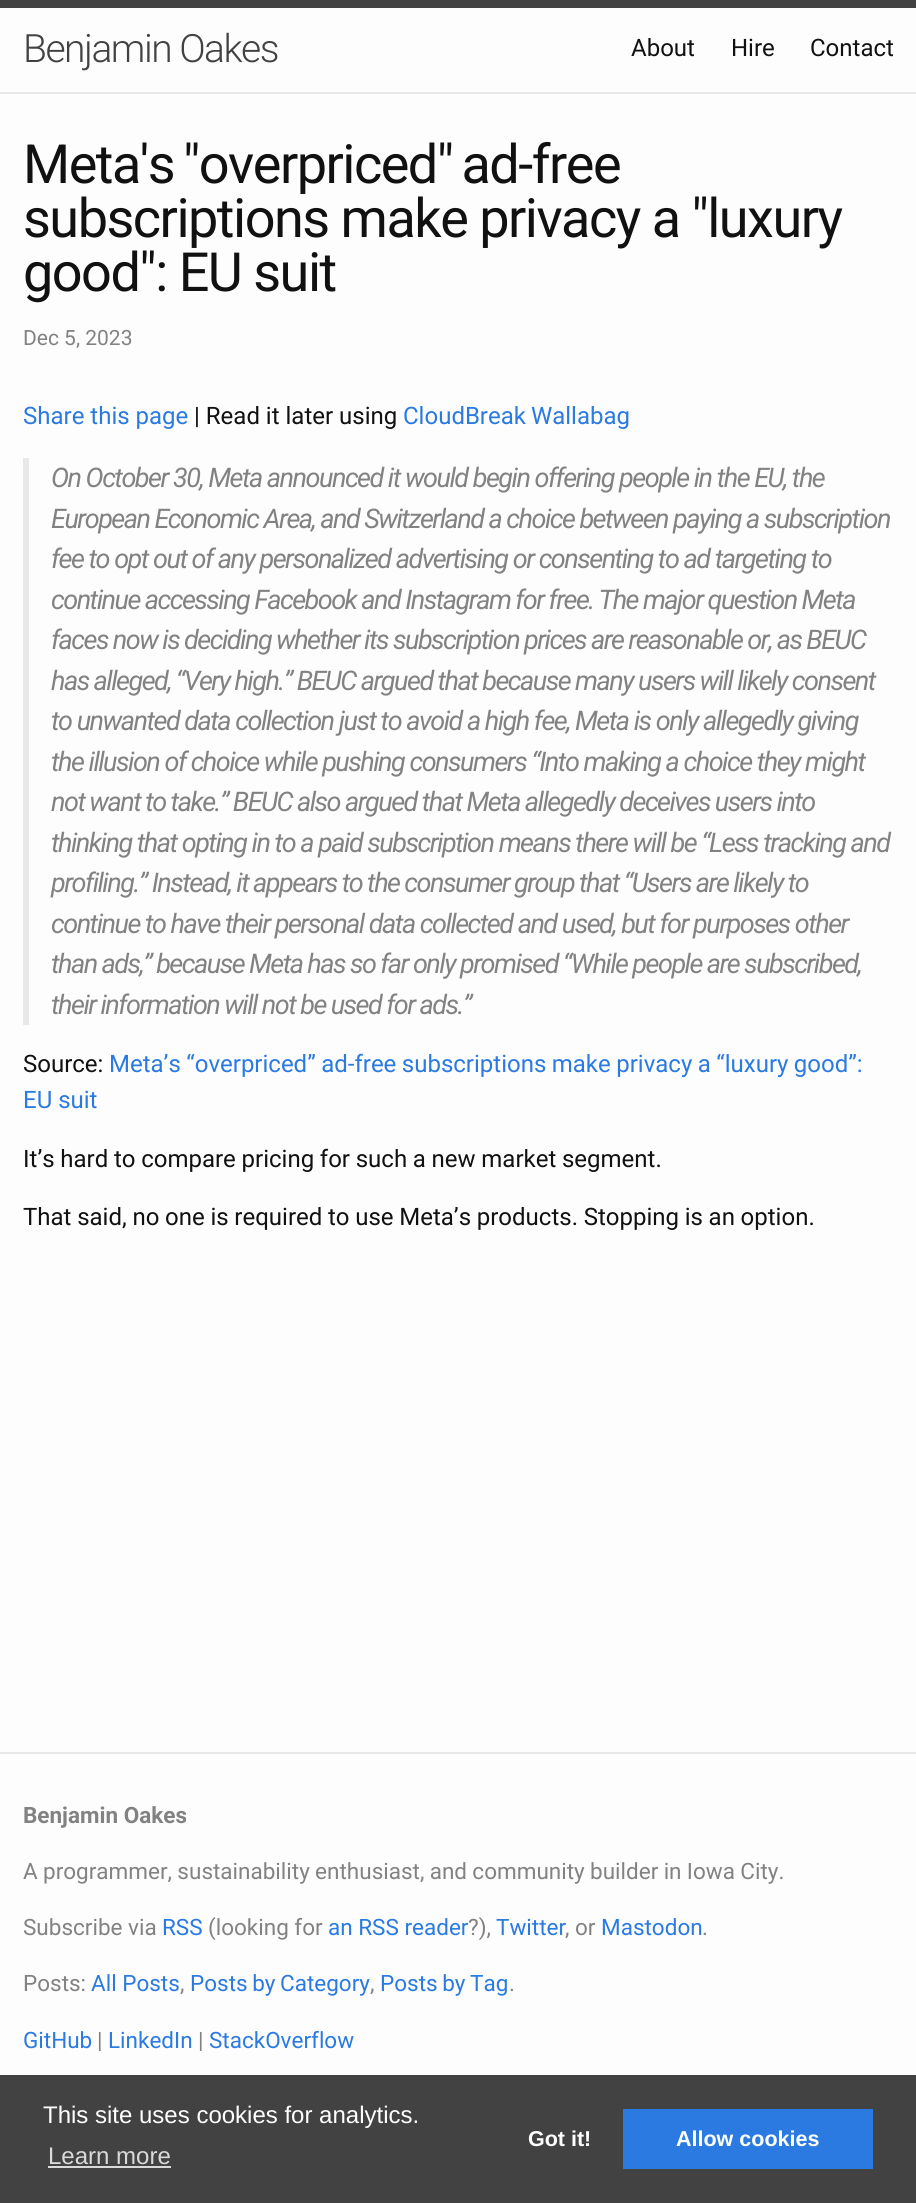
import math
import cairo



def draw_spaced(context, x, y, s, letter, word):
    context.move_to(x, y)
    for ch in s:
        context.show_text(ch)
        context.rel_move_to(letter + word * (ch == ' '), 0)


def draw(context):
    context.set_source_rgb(253 / 255, 253 / 255, 253 / 255)
    context.paint()
    context.set_source_rgb(66 / 255, 66 / 255, 66 / 255)
    context.rectangle(0, 0, 916, 8)
    context.fill()
    context.set_source_rgb(232 / 255, 232 / 255, 232 / 255)
    context.rectangle(0, 92, 916, 2)
    context.fill()
    context.rectangle(23, 458, 6, 567)
    context.fill()
    context.rectangle(0, 1752, 916, 2)
    context.fill()
    context.set_source_rgb(66 / 255, 66 / 255, 66 / 255)
    context.rectangle(0, 2075, 916, 128)
    context.fill()
    context.set_source_rgb(217 / 255, 217 / 255, 217 / 255)
    context.rectangle(48, 2166, 123, 2)
    context.fill()
    context.set_source_rgb(42 / 255, 122 / 255, 226 / 255)
    context.rectangle(623, 2109, 250, 60)
    context.fill()
    context.select_font_face("Roboto Light")
    context.set_font_size(39)
    context.set_source_rgb(66 / 255, 66 / 255, 66 / 255)
    draw_spaced(context, 23, 62, "Benjamin Oakes", -1.5, 0)
    context.select_font_face("Roboto")
    context.set_font_size(24)
    context.set_source_rgb(17 / 255, 17 / 255, 17 / 255)
    context.move_to(631, 56)
    context.show_text("About")
    context.move_to(731, 56)
    context.show_text("Hire")
    context.move_to(810, 56)
    context.show_text("Contact")
    context.set_font_size(54)
    draw_spaced(context, 23, 183, "Meta's \"overpriced\" ad-free", -1.5, -3)
    draw_spaced(context, 23, 237, "subscriptions make privacy a \"luxury", -1.5, 0)
    draw_spaced(context, 23, 291, "good\": EU suit", -1.5, 0)
    context.set_font_size(21)
    context.set_source_rgb(130 / 255, 130 / 255, 130 / 255)
    context.move_to(23, 345)
    context.show_text("Dec 5, 2023")
    context.set_font_size(24)
    context.set_source_rgb(42 / 255, 122 / 255, 226 / 255)
    context.move_to(23, 424)
    context.show_text("Share this page")
    context.set_source_rgb(17 / 255, 17 / 255, 17 / 255)
    context.move_to(194, 424)
    context.show_text("| Read it later using")
    context.set_source_rgb(42 / 255, 122 / 255, 226 / 255)
    draw_spaced(context, 403, 424, "CloudBreak Wallabag", 0, -1)
    context.select_font_face("Roboto", cairo.FontSlant.ITALIC)
    context.set_font_size(27)
    context.set_source_rgb(130 / 255, 130 / 255, 130 / 255)
    draw_spaced(context, 51, 487, "On October 30, Meta announced it would begin offering people in the EU, the", -1.5, 0)
    draw_spaced(context, 51, 528, "European Economic Area, and Switzerland a choice between paying a subscription", -1.5, -0.1)
    draw_spaced(context, 51, 568, "fee to opt out of any personalized advertising or consenting to ad targeting to", -1.5, 0)
    draw_spaced(context, 51, 609, "continue accessing Facebook and Instagram for free. The major question Meta", -1.5, -0.25)
    draw_spaced(context, 51, 649, "faces now is deciding whether its subscription prices are reasonable or, as BEUC", -1.5, -0.25)
    draw_spaced(context, 51, 690, "has alleged, “Very high.” BEUC argued that because many users will likely consent", -1.5, -0.25)
    draw_spaced(context, 51, 730, "to unwanted data collection just to avoid a high fee, Meta is only allegedly giving", -1.5, 0)
    draw_spaced(context, 51, 771, "the illusion of choice while pushing consumers “Into making a choice they might", -1.5, 0)
    draw_spaced(context, 51, 811, "not want to take.” BEUC also argued that Meta allegedly deceives users into", -1.5, -0.25)
    draw_spaced(context, 51, 852, "thinking that opting in to a paid subscription means there will be “Less tracking and", -1.5, 0)
    draw_spaced(context, 51, 892, "profiling.” Instead, it appears to the consumer group that “Users are likely to", -1.5, -0.25)
    draw_spaced(context, 51, 933, "continue to have their personal data collected and used, but for purposes other", -1.5, 0)
    draw_spaced(context, 51, 973, "than ads,” because Meta has so far only promised “While people are subscribed,", -1.5, -0.25)
    draw_spaced(context, 51, 1014, "their information will not be used for ads.”", -1.5, -0.25)
    context.select_font_face("Roboto")
    context.set_font_size(24)
    context.set_source_rgb(17 / 255, 17 / 255, 17 / 255)
    context.move_to(23, 1072)
    context.show_text("Source:")
    context.set_source_rgb(42 / 255, 122 / 255, 226 / 255)
    draw_spaced(context, 109, 1072, "Meta’s “overpriced” ad-free subscriptions make privacy a “luxury good”:", 0, -0.5)
    context.move_to(23, 1108)
    context.show_text("EU suit")
    context.set_source_rgb(17 / 255, 17 / 255, 17 / 255)
    draw_spaced(context, 23, 1167, "It’s hard to compare pricing for such a new market segment.", 0, -0.25)
    draw_spaced(context, 23, 1225, "That said, no one is required to use Meta’s products. Stopping is an option.", 0, -0.25)
    context.select_font_face("Roboto", cairo.FontSlant.NORMAL, cairo.FontWeight.BOLD)
    context.set_font_size(22.5)
    context.set_source_rgb(130 / 255, 130 / 255, 130 / 255)
    context.move_to(23, 1823)
    context.show_text("Benjamin Oakes")
    context.select_font_face("Roboto")
    draw_spaced(context, 23, 1879, "A programmer, sustainability enthusiast, and community builder in Iowa City.", 0, -0.25)
    context.move_to(23, 1935)
    context.show_text("Subscribe via")
    context.set_source_rgb(42 / 255, 122 / 255, 226 / 255)
    context.move_to(162, 1935)
    context.show_text("RSS")
    context.set_source_rgb(130 / 255, 130 / 255, 130 / 255)
    context.move_to(208, 1935)
    context.show_text("(looking for")
    context.set_source_rgb(42 / 255, 122 / 255, 226 / 255)
    context.move_to(328, 1935)
    context.show_text("an RSS reader")
    context.set_source_rgb(130 / 255, 130 / 255, 130 / 255)
    context.move_to(468, 1935)
    context.show_text("?),")
    context.set_source_rgb(42 / 255, 122 / 255, 226 / 255)
    context.move_to(496, 1935)
    context.show_text("Twitter")
    context.set_source_rgb(130 / 255, 130 / 255, 130 / 255)
    context.move_to(565, 1935)
    context.show_text(", or")
    context.set_source_rgb(42 / 255, 122 / 255, 226 / 255)
    context.move_to(601, 1935)
    context.show_text("Mastodon")
    context.set_source_rgb(130 / 255, 130 / 255, 130 / 255)
    context.move_to(702, 1935)
    context.show_text(".")
    context.move_to(23, 1991)
    context.show_text("Posts:")
    context.set_source_rgb(42 / 255, 122 / 255, 226 / 255)
    context.move_to(91, 1991)
    context.show_text("All Posts")
    context.set_source_rgb(130 / 255, 130 / 255, 130 / 255)
    context.move_to(180, 1991)
    context.show_text(",")
    context.set_source_rgb(42 / 255, 122 / 255, 226 / 255)
    draw_spaced(context, 190, 1991, "Posts by Category", 0, -1)
    context.set_source_rgb(130 / 255, 130 / 255, 130 / 255)
    context.move_to(370, 1991)
    context.show_text(",")
    context.set_source_rgb(42 / 255, 122 / 255, 226 / 255)
    draw_spaced(context, 380, 1991, "Posts by Tag", 0, -1)
    context.set_source_rgb(130 / 255, 130 / 255, 130 / 255)
    context.move_to(509, 1991)
    context.show_text(".")
    context.set_source_rgb(42 / 255, 122 / 255, 226 / 255)
    context.move_to(23, 2048)
    context.show_text("GitHub")
    context.set_source_rgb(130 / 255, 130 / 255, 130 / 255)
    context.move_to(97, 2048)
    context.show_text("|")
    context.set_source_rgb(42 / 255, 122 / 255, 226 / 255)
    context.move_to(108, 2048)
    context.show_text("LinkedIn")
    context.set_source_rgb(130 / 255, 130 / 255, 130 / 255)
    context.move_to(198, 2048)
    context.show_text("|")
    context.set_source_rgb(42 / 255, 122 / 255, 226 / 255)
    context.move_to(209, 2048)
    context.show_text("StackOverflow")
    context.select_font_face("Liberation Sans")
    context.set_font_size(24)
    context.set_source_rgb(1, 1, 1)
    context.move_to(43, 2123)
    context.show_text("This site uses cookies for analytics.")
    context.set_source_rgb(217 / 255, 217 / 255, 217 / 255)
    context.move_to(48, 2164)
    context.show_text("Learn more")
    context.select_font_face("Liberation Sans", cairo.FontSlant.NORMAL, cairo.FontWeight.BOLD)
    context.set_font_size(21.5)
    context.set_source_rgb(1, 1, 1)
    context.move_to(528, 2146)
    context.show_text("Got it!")
    context.move_to(676, 2146)
    context.show_text("Allow cookies")


surface = cairo.ImageSurface(cairo.Format.RGB24, 916, 2203)
context = cairo.Context(surface)
options = cairo.FontOptions()
options.set_hint_metrics(cairo.HintMetrics.OFF)
options.set_hint_style(cairo.HintStyle.NONE)
context.set_font_options(options)
context.set_miter_limit(4)
draw(context)
surface.write_to_png("out.png")
